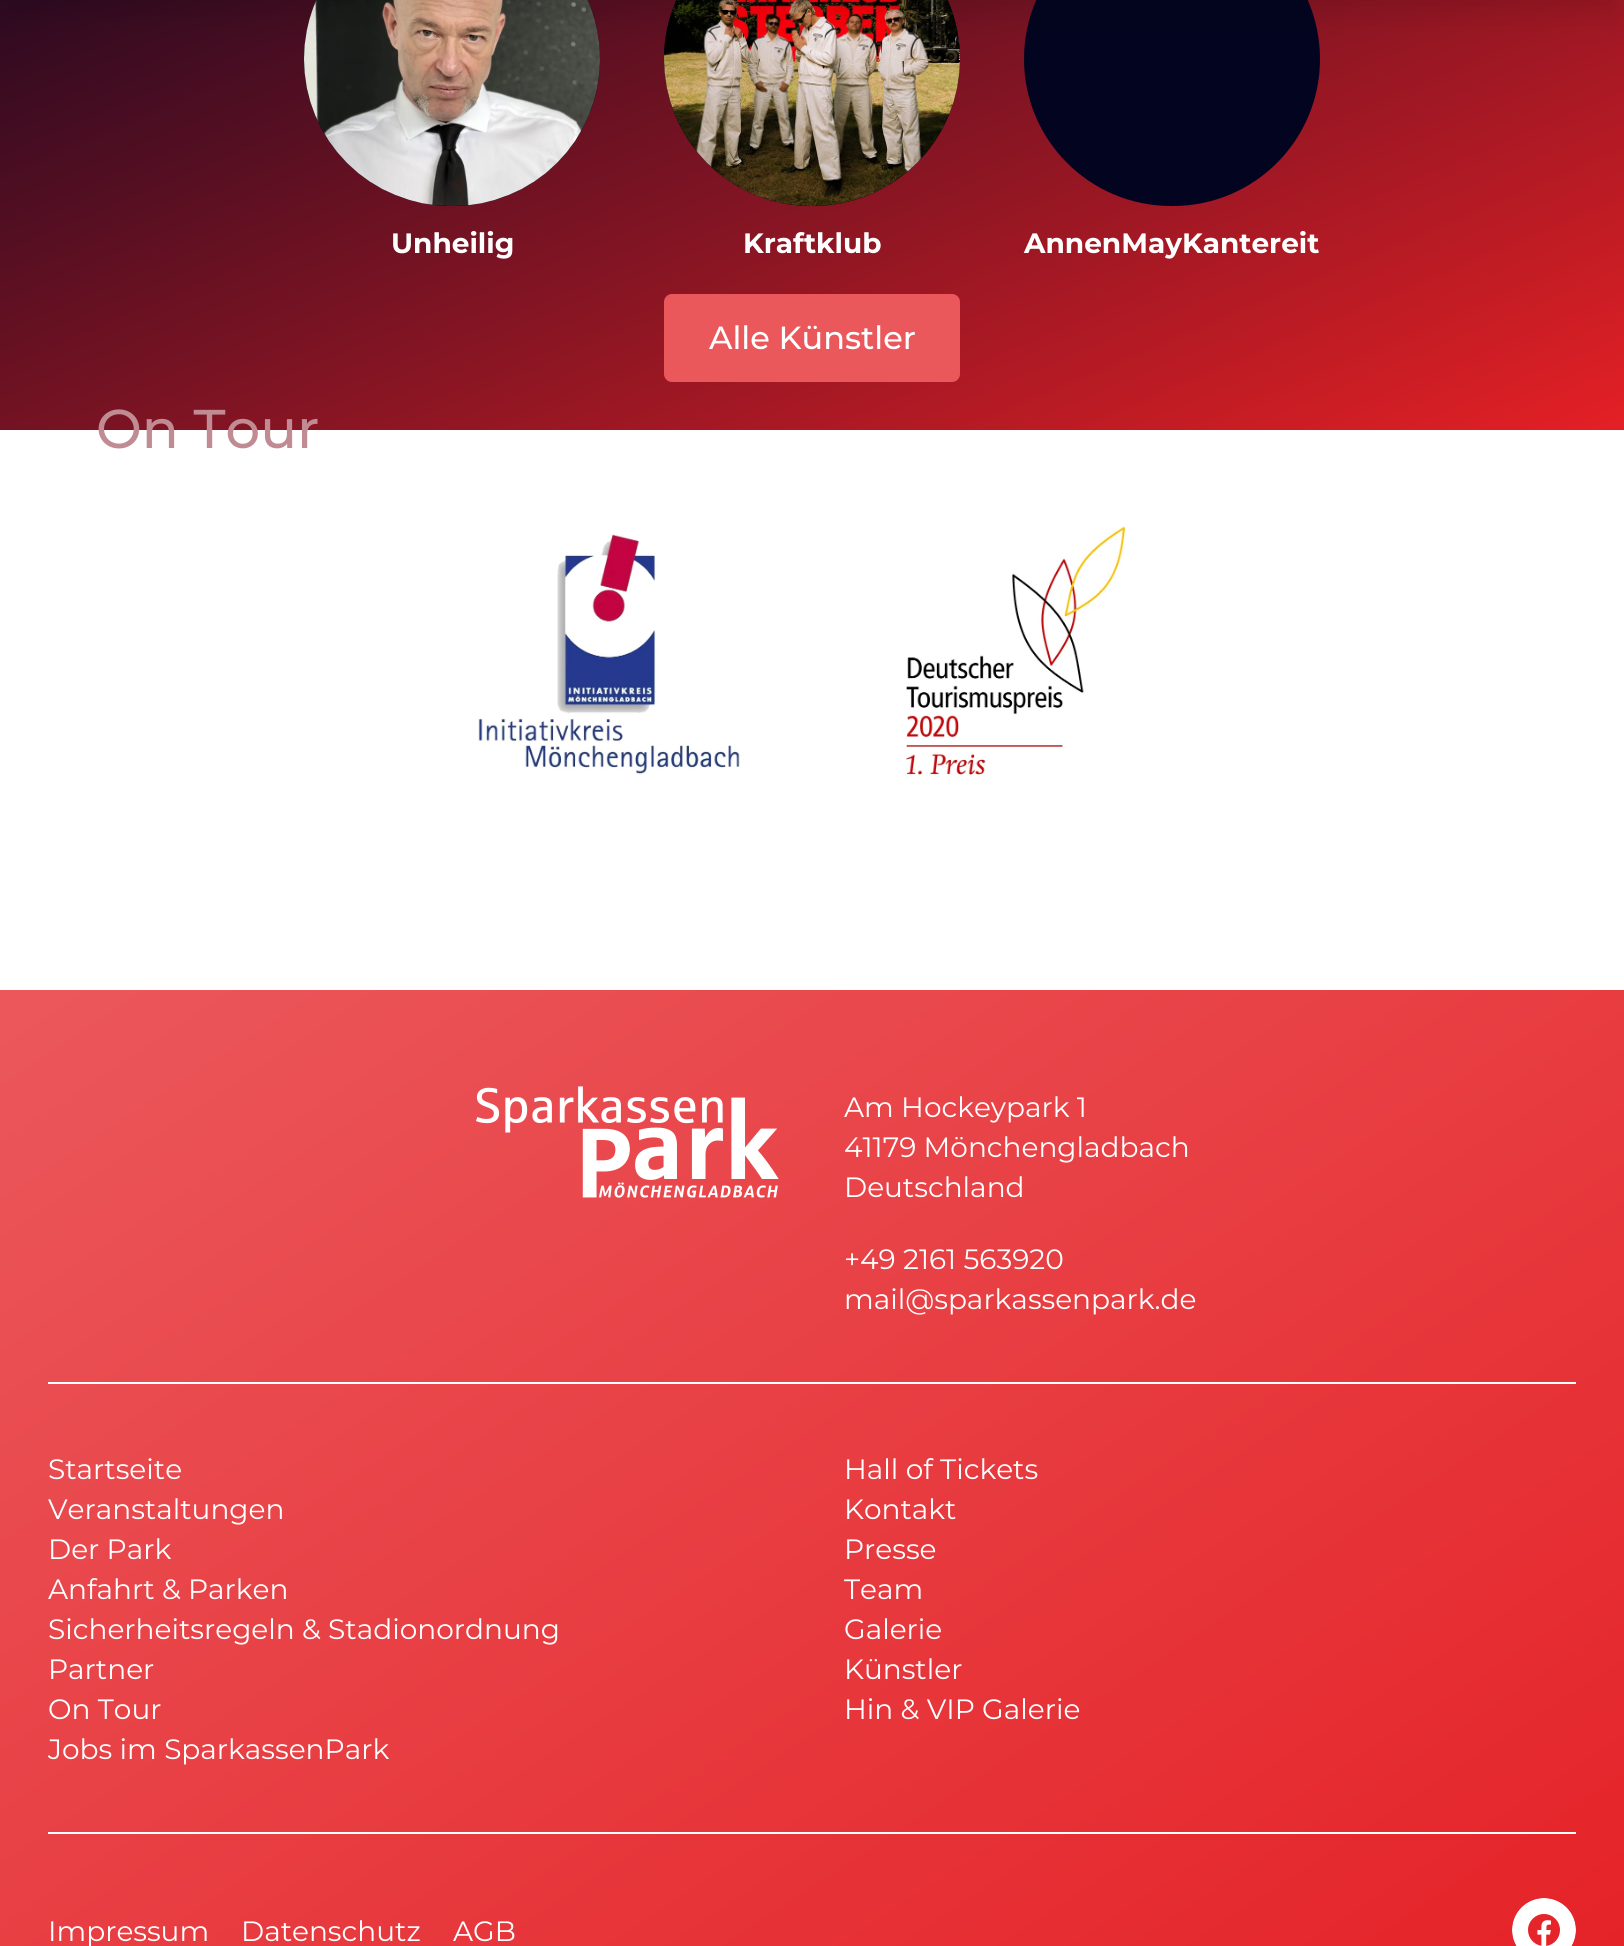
import math
import cairo



def rounded_rect(context, x, y, w, h, r):
    context.new_sub_path()
    for i, (u, v) in enumerate([(x + w - r, y + h - r), (x + r, y + h - r), (x + r, y + r), (x + w - r, y + r)]):
        context.arc(u, v, r, i * math.pi / 2, (i + 1) * math.pi / 2)
    context.close_path()


def draw_shadow(context, x, y, w, h, r, blur, alpha):
    context.push_group_with_content(cairo.Content.ALPHA)
    context.set_operator(cairo.Operator.SOURCE)
    for i in range(15, -16, -2):
        e = blur * i / 6
        if min(w, h) + 2 * e > 0:
            context.set_source_rgba(0, 0, 0, alpha * math.erfc((i - 1) / 8.5) / 2)
            rounded_rect(context, x - e, y - e, w + 2 * e, h + 2 * e, max(0, min(r + e + blur * .6, min(w, h) / 2 + e)))
            context.fill()
    context.mask(context.pop_group())


def draw_image(context, path, x, y, w, h):
    context.save()
    context.set_source_surface(cairo.ImageSurface.create_from_png(path), x, y)
    context.rectangle(x, y, w, h)
    context.fill()
    context.restore()


def draw(context):
    context.set_source_rgb(1, 1, 1)
    context.paint()
    gradient = cairo.LinearGradient(566, -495, 1058, 669)
    gradient.add_color_stop_rgba(0, 3 / 255, 5 / 255, 32 / 255, 1)
    gradient.add_color_stop_rgba(1, 228 / 255, 32 / 255, 37 / 255, 1)
    context.set_source(gradient)
    context.rectangle(0, 0, 1624, 430)
    context.fill()
    context.set_source_rgb(3 / 255, 5 / 255, 32 / 255)
    rounded_rect(context, 304, -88, 296, 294, 147)
    context.fill()
    draw_image(context, "images/1.png", 304, 0, 296, 206)
    rounded_rect(context, 664, -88, 296, 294, 147)
    context.fill()
    draw_image(context, "images/2.png", 664, 0, 296, 206)
    rounded_rect(context, 1024, -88, 296, 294, 147)
    context.fill()
    context.set_source_rgb(235 / 255, 88 / 255, 92 / 255)
    rounded_rect(context, 666, 296, 292, 84, 6)
    context.fill_preserve()
    context.set_line_width(4)
    context.stroke()
    context.set_source_rgb(0, 0, 0)
    draw_shadow(context, 6, -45, 1612, 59, 0, 15, 0.1)
    draw_image(context, "images/3.png", 478, 534, 262, 240)
    draw_image(context, "images/4.png", 904, 526, 223, 251)
    gradient = cairo.LinearGradient(322, 778, 1302, 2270)
    gradient.add_color_stop_rgba(0, 235 / 255, 88 / 255, 92 / 255, 1)
    gradient.add_color_stop_rgba(1, 228 / 255, 32 / 255, 37 / 255, 1)
    context.set_source(gradient)
    context.rectangle(0, 990, 1624, 956)
    context.fill()
    context.set_source_rgb(1, 1, 1)
    context.rectangle(48, 1382, 1528, 2)
    context.fill()
    draw_image(context, "images/5.png", 476, 1086, 303, 112)
    context.rectangle(48, 1832, 1528, 2)
    context.fill()
    draw_image(context, "images/6.png", 1512, 1898, 64, 48)
    context.select_font_face("Montserrat Thin")
    context.set_font_size(28)
    context.move_to(391, 253)
    context.show_text("Unheilig")
    context.move_to(743, 253)
    context.show_text("Kraftklub")
    context.move_to(1024, 253)
    context.show_text("AnnenMayKantereit")
    context.select_font_face("Montserrat Medium")
    context.set_font_size(32)
    context.move_to(709, 349)
    context.show_text("Alle Künstler")
    context.set_font_size(54.5)
    context.set_source_rgb(192 / 255, 139 / 255, 146 / 255)
    context.move_to(96, 448)
    context.show_text("On Tour")
    context.select_font_face("Montserrat")
    context.set_font_size(28)
    context.set_source_rgb(1, 1, 1)
    context.move_to(844, 1117)
    context.show_text("Am Hockeypark 1")
    context.move_to(844, 1157)
    context.show_text("41179 Mönchengladbach")
    context.move_to(844, 1197)
    context.show_text("Deutschland")
    context.move_to(844, 1269)
    context.show_text("+49 2161 563920")
    context.move_to(844, 1309)
    context.show_text("mail@sparkassenpark.de")
    context.move_to(48, 1479)
    context.show_text("Startseite")
    context.move_to(48, 1519)
    context.show_text("Veranstaltungen")
    context.move_to(48, 1559)
    context.show_text("Der Park")
    context.move_to(48, 1599)
    context.show_text("Anfahrt & Parken")
    context.move_to(48, 1639)
    context.show_text("Sicherheitsregeln & Stadionordnung")
    context.move_to(48, 1679)
    context.show_text("Partner")
    context.move_to(48, 1719)
    context.show_text("On Tour")
    context.move_to(48, 1759)
    context.show_text("Jobs im SparkassenPark")
    context.move_to(844, 1479)
    context.show_text("Hall of Tickets")
    context.move_to(844, 1519)
    context.show_text("Kontakt")
    context.move_to(844, 1559)
    context.show_text("Presse")
    context.move_to(844, 1599)
    context.show_text("Team")
    context.move_to(844, 1639)
    context.show_text("Galerie")
    context.move_to(844, 1679)
    context.show_text("Künstler")
    context.move_to(844, 1719)
    context.show_text("Hin & VIP Galerie")
    context.move_to(48, 1941)
    context.show_text("Impressum")
    context.move_to(241, 1941)
    context.show_text("Datenschutz")
    context.move_to(453, 1941)
    context.show_text("AGB")


surface = cairo.ImageSurface(cairo.Format.RGB24, 1624, 1946)
context = cairo.Context(surface)
options = cairo.FontOptions()
options.set_hint_metrics(cairo.HintMetrics.OFF)
options.set_hint_style(cairo.HintStyle.NONE)
context.set_font_options(options)
context.set_miter_limit(4)
draw(context)
surface.write_to_png("out.png")
